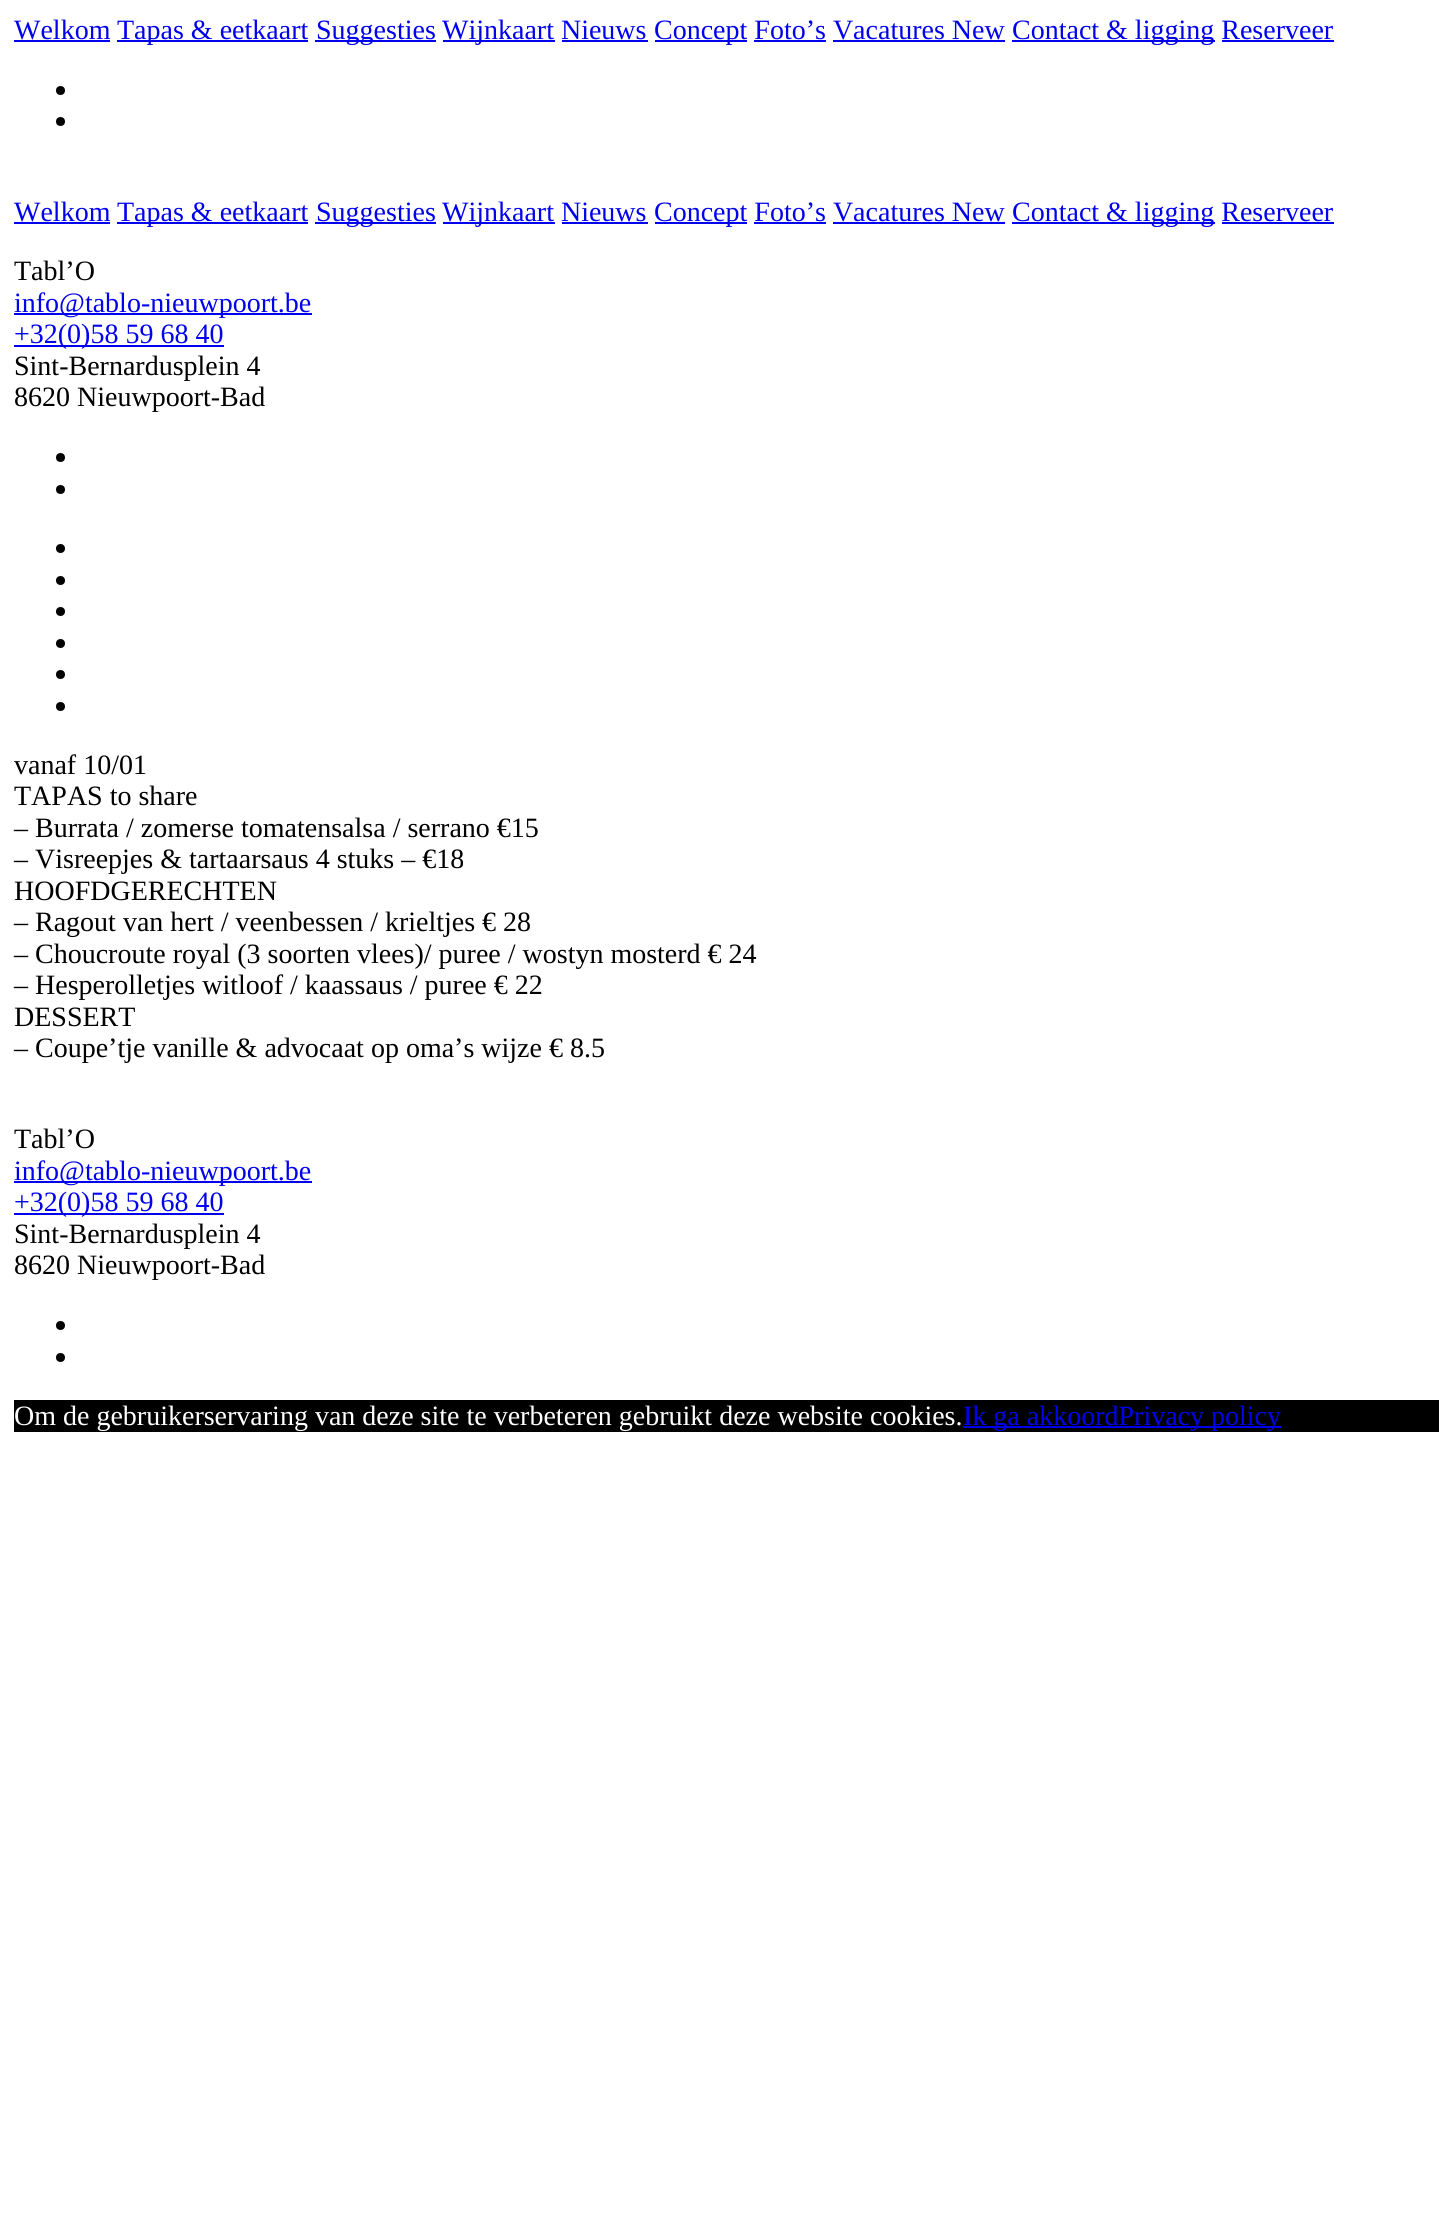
import math
import cairo



def draw(context):
    context.set_source_rgb(1, 1, 1)
    context.paint()
    context.set_source_rgb(0, 0, 238 / 255)
    context.rectangle(14, 40, 96, 2)
    context.fill()
    context.rectangle(117, 40, 191, 2)
    context.fill()
    context.rectangle(315, 40, 121, 2)
    context.fill()
    context.rectangle(443, 40, 112, 2)
    context.fill()
    context.rectangle(655, 40, 92, 2)
    context.fill()
    context.rectangle(1012, 40, 203, 2)
    context.fill()
    context.rectangle(562, 40, 86, 2)
    context.fill()
    context.rectangle(754, 40, 72, 2)
    context.fill()
    context.rectangle(833, 40, 172, 2)
    context.fill()
    context.rectangle(1222, 40, 112, 2)
    context.fill()
    context.set_source_rgb(0, 0, 0)
    context.arc(60.5, 90.5, 4.5, 0, 2 * math.pi)
    context.fill()
    context.arc(60.5, 121.5, 4.5, 0, 2 * math.pi)
    context.fill()
    context.set_source_rgb(0, 0, 238 / 255)
    context.rectangle(14, 222, 96, 2)
    context.fill()
    context.rectangle(117, 222, 191, 2)
    context.fill()
    context.rectangle(315, 222, 121, 2)
    context.fill()
    context.rectangle(443, 222, 112, 2)
    context.fill()
    context.rectangle(655, 222, 92, 2)
    context.fill()
    context.rectangle(1012, 222, 203, 2)
    context.fill()
    context.rectangle(562, 222, 86, 2)
    context.fill()
    context.rectangle(754, 222, 72, 2)
    context.fill()
    context.rectangle(833, 222, 172, 2)
    context.fill()
    context.rectangle(1222, 222, 112, 2)
    context.fill()
    context.rectangle(14, 313, 298, 2)
    context.fill()
    context.rectangle(14, 345, 210, 2)
    context.fill()
    context.set_source_rgb(0, 0, 0)
    context.arc(60.5, 457.5, 4.5, 0, 2 * math.pi)
    context.fill()
    context.arc(60.5, 489.5, 4.5, 0, 2 * math.pi)
    context.fill()
    context.arc(60.5, 548.5, 4.5, 0, 2 * math.pi)
    context.fill()
    context.arc(60.5, 580.5, 4.5, 0, 2 * math.pi)
    context.fill()
    context.arc(60.5, 611.5, 4.5, 0, 2 * math.pi)
    context.fill()
    context.arc(60.5, 643.5, 4.5, 0, 2 * math.pi)
    context.fill()
    context.arc(60.5, 674.5, 4.5, 0, 2 * math.pi)
    context.fill()
    context.arc(60.5, 706.5, 4.5, 0, 2 * math.pi)
    context.fill()
    context.set_source_rgb(0, 0, 238 / 255)
    context.rectangle(14, 1181, 298, 2)
    context.fill()
    context.rectangle(14, 1213, 210, 2)
    context.fill()
    context.set_source_rgb(0, 0, 0)
    context.arc(60.5, 1325.5, 4.5, 0, 2 * math.pi)
    context.fill()
    context.arc(60.5, 1357.5, 4.5, 0, 2 * math.pi)
    context.fill()
    context.rectangle(14, 1400, 1425, 32)
    context.fill()
    context.set_source_rgb(0, 0, 238 / 255)
    context.rectangle(963, 1426, 318, 2)
    context.fill()
    context.select_font_face("Liberation Serif")
    context.set_font_size(28)
    context.move_to(14, 39)
    context.show_text("Welkom")
    context.move_to(117, 39)
    context.show_text("Tapas & eetkaart")
    context.move_to(316, 39)
    context.show_text("Suggesties")
    context.move_to(442, 39)
    context.show_text("Wijnkaart Nieuws")
    context.move_to(654, 39)
    context.show_text("Concept Foto’s Vacatures New")
    context.move_to(1012, 39)
    context.show_text("Contact & ligging Reserveer")
    context.move_to(14, 221)
    context.show_text("Welkom")
    context.move_to(117, 221)
    context.show_text("Tapas & eetkaart")
    context.move_to(316, 221)
    context.show_text("Suggesties")
    context.move_to(442, 221)
    context.show_text("Wijnkaart Nieuws")
    context.move_to(654, 221)
    context.show_text("Concept Foto’s Vacatures New")
    context.move_to(1012, 221)
    context.show_text("Contact & ligging Reserveer")
    context.set_source_rgb(0, 0, 0)
    context.move_to(14, 280)
    context.show_text("Tabl’O")
    context.set_source_rgb(0, 0, 238 / 255)
    context.move_to(14, 312)
    context.show_text("info@tablo-nieuwpoort.be")
    context.move_to(14, 343)
    context.show_text("+32(0)58 59 68 40")
    context.set_source_rgb(0, 0, 0)
    context.move_to(14, 375)
    context.show_text("Sint-Bernardusplein 4")
    context.move_to(14, 406)
    context.show_text("8620 Nieuwpoort-Bad")
    context.move_to(14, 774)
    context.show_text("vanaf 10/01")
    context.move_to(14, 805)
    context.show_text("TAPAS to share")
    context.move_to(14, 837)
    context.show_text("– Burrata / zomerse tomatensalsa / serrano €15")
    context.move_to(14, 868)
    context.show_text("– Visreepjes & tartaarsaus 4 stuks – €18")
    context.move_to(14, 900)
    context.show_text("HOOFDGERECHTEN")
    context.move_to(14, 931)
    context.show_text("– Ragout van hert / veenbessen / krieltjes € 28")
    context.move_to(14, 963)
    context.show_text("– Choucroute royal (3 soorten vlees)/ puree / wostyn mosterd € 24")
    context.move_to(14, 994)
    context.show_text("– Hesperolletjes witloof / kaassaus / puree € 22")
    context.move_to(14, 1026)
    context.show_text("DESSERT")
    context.move_to(14, 1057)
    context.show_text("– Coupe’tje vanille & advocaat op oma’s wijze € 8.5")
    context.move_to(14, 1148)
    context.show_text("Tabl’O")
    context.set_source_rgb(0, 0, 238 / 255)
    context.move_to(14, 1180)
    context.show_text("info@tablo-nieuwpoort.be")
    context.move_to(14, 1211)
    context.show_text("+32(0)58 59 68 40")
    context.set_source_rgb(0, 0, 0)
    context.move_to(14, 1243)
    context.show_text("Sint-Bernardusplein 4")
    context.move_to(14, 1274)
    context.show_text("8620 Nieuwpoort-Bad")
    context.set_source_rgb(1, 1, 1)
    context.move_to(14, 1425)
    context.show_text("Om de gebruikerservaring van deze site te verbeteren gebruikt deze website cookies.")
    context.set_source_rgb(0, 0, 238 / 255)
    context.move_to(963, 1425)
    context.show_text("Ik ga akkoordPrivacy policy")


surface = cairo.ImageSurface(cairo.Format.RGB24, 1451, 2223)
context = cairo.Context(surface)
options = cairo.FontOptions()
options.set_hint_metrics(cairo.HintMetrics.OFF)
options.set_hint_style(cairo.HintStyle.NONE)
context.set_font_options(options)
context.set_miter_limit(4)
draw(context)
surface.write_to_png("out.png")
